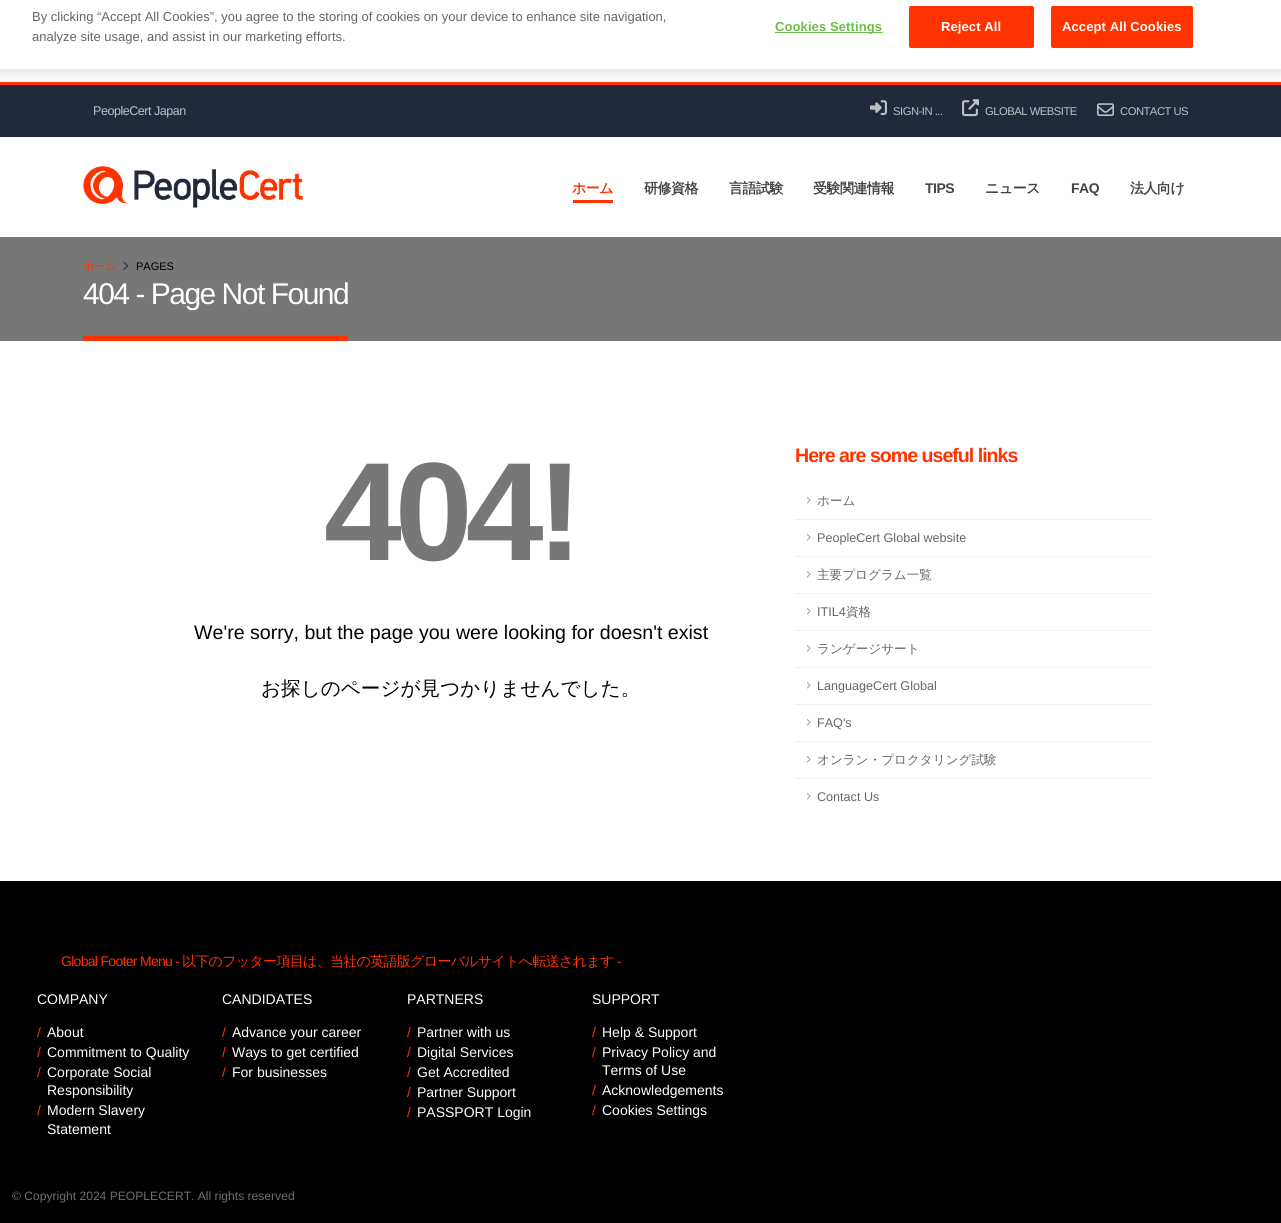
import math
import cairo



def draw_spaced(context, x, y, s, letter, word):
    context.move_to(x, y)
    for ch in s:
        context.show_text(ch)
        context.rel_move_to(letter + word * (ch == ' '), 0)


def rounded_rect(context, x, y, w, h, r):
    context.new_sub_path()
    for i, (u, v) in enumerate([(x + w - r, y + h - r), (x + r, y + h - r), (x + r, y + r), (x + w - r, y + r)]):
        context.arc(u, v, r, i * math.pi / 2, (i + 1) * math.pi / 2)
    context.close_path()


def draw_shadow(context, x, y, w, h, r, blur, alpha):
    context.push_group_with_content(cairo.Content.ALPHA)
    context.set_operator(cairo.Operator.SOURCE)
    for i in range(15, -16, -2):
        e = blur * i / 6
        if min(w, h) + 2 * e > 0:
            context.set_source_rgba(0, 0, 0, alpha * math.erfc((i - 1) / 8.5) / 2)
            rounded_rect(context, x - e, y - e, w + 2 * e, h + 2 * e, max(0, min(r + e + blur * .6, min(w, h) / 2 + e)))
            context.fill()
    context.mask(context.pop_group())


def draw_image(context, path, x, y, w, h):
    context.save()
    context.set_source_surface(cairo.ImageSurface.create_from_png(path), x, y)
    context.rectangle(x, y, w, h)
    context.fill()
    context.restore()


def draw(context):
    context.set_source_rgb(1, 1, 1)
    context.paint()
    context.set_source_rgb(1, 50 / 255, 0)
    context.rectangle(0, 82, 1281, 3)
    context.fill()
    context.set_source_rgb(32 / 255, 42 / 255, 59 / 255)
    context.rectangle(0, 85, 1281, 52)
    context.fill()
    context.save()
    context.rectangle(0, 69, 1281, 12)
    context.clip()
    context.set_source_rgb(0, 0, 0)
    draw_shadow(context, 0, -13, 1281, 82, 0, 9, 0.2)
    context.restore()
    context.set_source_rgb(108 / 255, 192 / 255, 74 / 255)
    context.rectangle(775, 32, 108, 1)
    context.fill()
    context.set_source_rgb(1, 50 / 255, 0)
    rounded_rect(context, 909.5, 6.5, 124, 41, 1.5)
    context.fill_preserve()
    context.set_line_width(1)
    context.stroke()
    rounded_rect(context, 1051.5, 6.5, 141, 41, 1.5)
    context.fill_preserve()
    context.stroke()
    draw_image(context, "images/1.png", 870, 100, 17, 16)
    draw_image(context, "images/2.png", 962, 99, 17, 18)
    draw_image(context, "images/3.png", 1097, 103, 17, 13)
    draw_image(context, "images/4.png", 83, 166, 220, 42)
    context.rectangle(573, 200, 40, 3)
    context.fill()
    context.set_source_rgb(119 / 255, 119 / 255, 119 / 255)
    context.rectangle(0, 237, 1281, 104)
    context.fill()
    draw_image(context, "images/5.png", 123, 261, 6, 9)
    context.set_source_rgb(1, 50 / 255, 0)
    context.rectangle(83, 336, 265, 5)
    context.fill()
    context.set_source_rgb(240 / 255, 240 / 255, 240 / 255)
    context.rectangle(795, 519, 356, 1)
    context.fill()
    draw_image(context, "images/6.png", 807, 497, 4, 7)
    context.rectangle(795, 556, 356, 1)
    context.fill()
    draw_image(context, "images/6.png", 807, 534, 4, 7)
    context.rectangle(795, 593, 356, 1)
    context.fill()
    draw_image(context, "images/6.png", 807, 571, 4, 7)
    context.rectangle(795, 630, 356, 1)
    context.fill()
    draw_image(context, "images/6.png", 807, 608, 4, 7)
    context.rectangle(795, 667, 356, 1)
    context.fill()
    draw_image(context, "images/6.png", 807, 645, 4, 7)
    context.rectangle(795, 704, 356, 1)
    context.fill()
    draw_image(context, "images/6.png", 807, 682, 4, 7)
    context.rectangle(795, 741, 356, 1)
    context.fill()
    draw_image(context, "images/6.png", 807, 719, 4, 7)
    context.rectangle(795, 778, 356, 1)
    context.fill()
    draw_image(context, "images/6.png", 807, 756, 4, 7)
    draw_image(context, "images/6.png", 807, 793, 4, 7)
    context.set_source_rgb(0, 0, 0)
    context.rectangle(0, 881, 1281, 342)
    context.fill()
    context.select_font_face("Liberation Sans")
    context.set_font_size(13)
    context.set_source_rgb(102 / 255, 102 / 255, 102 / 255)
    context.move_to(32, 21)
    context.show_text("By clicking “Accept All Cookies”, you agree to the storing of cookies on your device to enhance site navigation,")
    context.move_to(32, 41)
    context.show_text("analyze site usage, and assist in our marketing efforts.")
    context.select_font_face("Liberation Sans", cairo.FontSlant.NORMAL, cairo.FontWeight.BOLD)
    context.set_source_rgb(108 / 255, 192 / 255, 74 / 255)
    draw_spaced(context, 775, 31, "Cookies Settings", 0.1, 0)
    context.set_source_rgb(1, 1, 1)
    draw_spaced(context, 941, 31, "Reject All", 0.1, 0)
    draw_spaced(context, 1062, 31, "Accept All Cookies", 0.1, 0)
    context.select_font_face("Liberation Sans")
    context.set_font_size(12.6)
    context.set_source_rgb(188 / 255, 191 / 255, 196 / 255)
    draw_spaced(context, 93, 115, "PeopleCert Japan", -0.5, 0)
    context.set_font_size(11.25)
    draw_spaced(context, 893, 115, "SIGN-IN ...", -0.5, 0)
    draw_spaced(context, 985, 115, "GLOBAL WEBSITE", -0.5, 0)
    draw_spaced(context, 1120, 115, "CONTACT US", -0.5, 0)
    context.select_font_face("WenQuanYi Zen Hei", cairo.FontSlant.NORMAL, cairo.FontWeight.BOLD)
    context.set_font_size(14)
    context.set_source_rgb(1, 50 / 255, 0)
    draw_spaced(context, 572, 193, "ホーム", -0.5, 0)
    context.set_source_rgb(68 / 255, 68 / 255, 68 / 255)
    draw_spaced(context, 644, 193, "研修資格", -0.5, 0)
    draw_spaced(context, 729, 193, "言語試験", -0.5, 0)
    draw_spaced(context, 813, 193, "受験関連情報", -0.5, 0)
    context.select_font_face("Liberation Sans", cairo.FontSlant.NORMAL, cairo.FontWeight.BOLD)
    draw_spaced(context, 925, 193, "TIPS", -0.5, 0)
    context.select_font_face("WenQuanYi Zen Hei", cairo.FontSlant.NORMAL, cairo.FontWeight.BOLD)
    draw_spaced(context, 985, 193, "ニュース", -0.5, 0)
    context.select_font_face("Liberation Sans", cairo.FontSlant.NORMAL, cairo.FontWeight.BOLD)
    draw_spaced(context, 1071, 193, "FAQ", -0.5, 0)
    context.select_font_face("WenQuanYi Zen Hei", cairo.FontSlant.NORMAL, cairo.FontWeight.BOLD)
    draw_spaced(context, 1130, 193, "法人向け", -0.5, 0)
    context.select_font_face("WenQuanYi Zen Hei Medium")
    context.set_font_size(11)
    context.set_source_rgb(1, 50 / 255, 0)
    context.move_to(83, 270)
    context.show_text("ホーム")
    context.select_font_face("Liberation Sans")
    context.set_source_rgb(0, 0, 0)
    context.move_to(136, 270)
    context.show_text("PAGES")
    context.set_font_size(30)
    context.set_source_rgb(1, 1, 1)
    draw_spaced(context, 83, 304, "404 - Page Not Found", -1.5, 0)
    context.select_font_face("Liberation Sans", cairo.FontSlant.NORMAL, cairo.FontWeight.BOLD)
    context.set_font_size(140)
    context.set_source_rgb(119 / 255, 119 / 255, 119 / 255)
    draw_spaced(context, 324, 560, "404!", -7, 0)
    context.select_font_face("Liberation Sans")
    context.set_font_size(19.6)
    context.set_source_rgb(0, 0, 0)
    context.move_to(194, 639)
    context.show_text("We're sorry, but the page you were looking for doesn't exist")
    context.select_font_face("WenQuanYi Zen Hei Medium")
    context.move_to(261, 695)
    context.show_text("お探しのページが見つかりませんでした。")
    context.select_font_face("Liberation Sans", cairo.FontSlant.NORMAL, cairo.FontWeight.BOLD)
    context.set_source_rgb(1, 50 / 255, 0)
    draw_spaced(context, 795, 462, "Here are some useful links", -1, 0)
    context.select_font_face("WenQuanYi Zen Hei Medium")
    context.set_font_size(12.6)
    context.set_source_rgb(102 / 255, 102 / 255, 102 / 255)
    context.move_to(817, 505)
    context.show_text("ホーム")
    context.select_font_face("Liberation Sans")
    context.move_to(817, 542)
    context.show_text("PeopleCert Global website")
    context.select_font_face("WenQuanYi Zen Hei Medium")
    context.move_to(817, 579)
    context.show_text("主要プログラム一覧")
    context.select_font_face("Liberation Sans")
    context.move_to(817, 616)
    context.show_text("ITIL4")
    context.select_font_face("WenQuanYi Zen Hei Medium")
    context.move_to(846, 616)
    context.show_text("資格")
    context.move_to(817, 653)
    context.show_text("ランゲージサート")
    context.select_font_face("Liberation Sans")
    context.move_to(817, 690)
    context.show_text("LanguageCert Global")
    context.move_to(817, 727)
    context.show_text("FAQ's")
    context.select_font_face("WenQuanYi Zen Hei Medium")
    context.move_to(817, 764)
    context.show_text("オンラン・プロクタリング試験")
    context.select_font_face("Liberation Sans")
    context.move_to(817, 801)
    context.show_text("Contact Us")
    context.set_font_size(14)
    context.set_source_rgb(1, 50 / 255, 0)
    draw_spaced(context, 61, 966, "Global Footer Menu -", -0.7, 0)
    context.select_font_face("WenQuanYi Zen Hei Medium")
    draw_spaced(context, 182, 966, "以下のフッター項目は、当社の英語版グローバルサイトへ転送されます", -0.7, 0)
    context.select_font_face("Liberation Sans")
    draw_spaced(context, 617, 966, "-", -0.7, 0)
    context.set_source_rgb(1, 1, 1)
    context.move_to(37, 1004)
    context.show_text("COMPANY")
    context.set_source_rgb(1, 50 / 255, 0)
    context.move_to(37, 1037)
    context.show_text("/")
    context.set_source_rgb(1, 1, 1)
    context.move_to(47, 1037)
    context.show_text("About")
    context.set_source_rgb(1, 50 / 255, 0)
    context.move_to(37, 1057)
    context.show_text("/")
    context.set_source_rgb(1, 1, 1)
    context.move_to(47, 1057)
    context.show_text("Commitment to Quality")
    context.set_source_rgb(1, 50 / 255, 0)
    context.move_to(37, 1077)
    context.show_text("/")
    context.set_source_rgb(1, 1, 1)
    context.move_to(47, 1077)
    context.show_text("Corporate Social")
    context.move_to(47, 1095)
    context.show_text("Responsibility")
    context.set_source_rgb(1, 50 / 255, 0)
    context.move_to(37, 1115)
    context.show_text("/")
    context.set_source_rgb(1, 1, 1)
    context.move_to(47, 1115)
    context.show_text("Modern Slavery")
    context.move_to(47, 1134)
    context.show_text("Statement")
    context.move_to(222, 1004)
    context.show_text("CANDIDATES")
    context.set_source_rgb(1, 50 / 255, 0)
    context.move_to(222, 1037)
    context.show_text("/")
    context.set_source_rgb(1, 1, 1)
    context.move_to(232, 1037)
    context.show_text("Advance your career")
    context.set_source_rgb(1, 50 / 255, 0)
    context.move_to(222, 1057)
    context.show_text("/")
    context.set_source_rgb(1, 1, 1)
    context.move_to(232, 1057)
    context.show_text("Ways to get certified")
    context.set_source_rgb(1, 50 / 255, 0)
    context.move_to(222, 1077)
    context.show_text("/")
    context.set_source_rgb(1, 1, 1)
    context.move_to(232, 1077)
    context.show_text("For businesses")
    context.move_to(407, 1004)
    context.show_text("PARTNERS")
    context.set_source_rgb(1, 50 / 255, 0)
    context.move_to(407, 1037)
    context.show_text("/")
    context.set_source_rgb(1, 1, 1)
    context.move_to(417, 1037)
    context.show_text("Partner with us")
    context.set_source_rgb(1, 50 / 255, 0)
    context.move_to(407, 1057)
    context.show_text("/")
    context.set_source_rgb(1, 1, 1)
    context.move_to(417, 1057)
    context.show_text("Digital Services")
    context.set_source_rgb(1, 50 / 255, 0)
    context.move_to(407, 1077)
    context.show_text("/")
    context.set_source_rgb(1, 1, 1)
    context.move_to(417, 1077)
    context.show_text("Get Accredited")
    context.set_source_rgb(1, 50 / 255, 0)
    context.move_to(407, 1097)
    context.show_text("/")
    context.set_source_rgb(1, 1, 1)
    context.move_to(417, 1097)
    context.show_text("Partner Support")
    context.set_source_rgb(1, 50 / 255, 0)
    context.move_to(407, 1117)
    context.show_text("/")
    context.set_source_rgb(1, 1, 1)
    context.move_to(417, 1117)
    context.show_text("PASSPORT Login")
    context.move_to(592, 1004)
    context.show_text("SUPPORT")
    context.set_source_rgb(1, 50 / 255, 0)
    context.move_to(592, 1037)
    context.show_text("/")
    context.set_source_rgb(1, 1, 1)
    context.move_to(602, 1037)
    context.show_text("Help & Support")
    context.set_source_rgb(1, 50 / 255, 0)
    context.move_to(592, 1057)
    context.show_text("/")
    context.set_source_rgb(1, 1, 1)
    context.move_to(602, 1057)
    context.show_text("Privacy Policy and")
    context.move_to(602, 1075)
    context.show_text("Terms of Use")
    context.set_source_rgb(1, 50 / 255, 0)
    context.move_to(592, 1095)
    context.show_text("/")
    context.set_source_rgb(1, 1, 1)
    context.move_to(602, 1095)
    context.show_text("Acknowledgements")
    context.set_source_rgb(1, 50 / 255, 0)
    context.move_to(592, 1115)
    context.show_text("/")
    context.set_source_rgb(1, 1, 1)
    context.move_to(602, 1115)
    context.show_text("Cookies Settings")
    context.set_font_size(12.1)
    context.set_source_rgb(109 / 255, 109 / 255, 109 / 255)
    context.move_to(12, 1200)
    context.show_text("© Copyright 2024 PEOPLECERT. All rights reserved")


surface = cairo.ImageSurface(cairo.Format.RGB24, 1281, 1223)
context = cairo.Context(surface)
options = cairo.FontOptions()
options.set_hint_metrics(cairo.HintMetrics.OFF)
options.set_hint_style(cairo.HintStyle.NONE)
context.set_font_options(options)
context.set_miter_limit(4)
draw(context)
surface.write_to_png("out.png")
